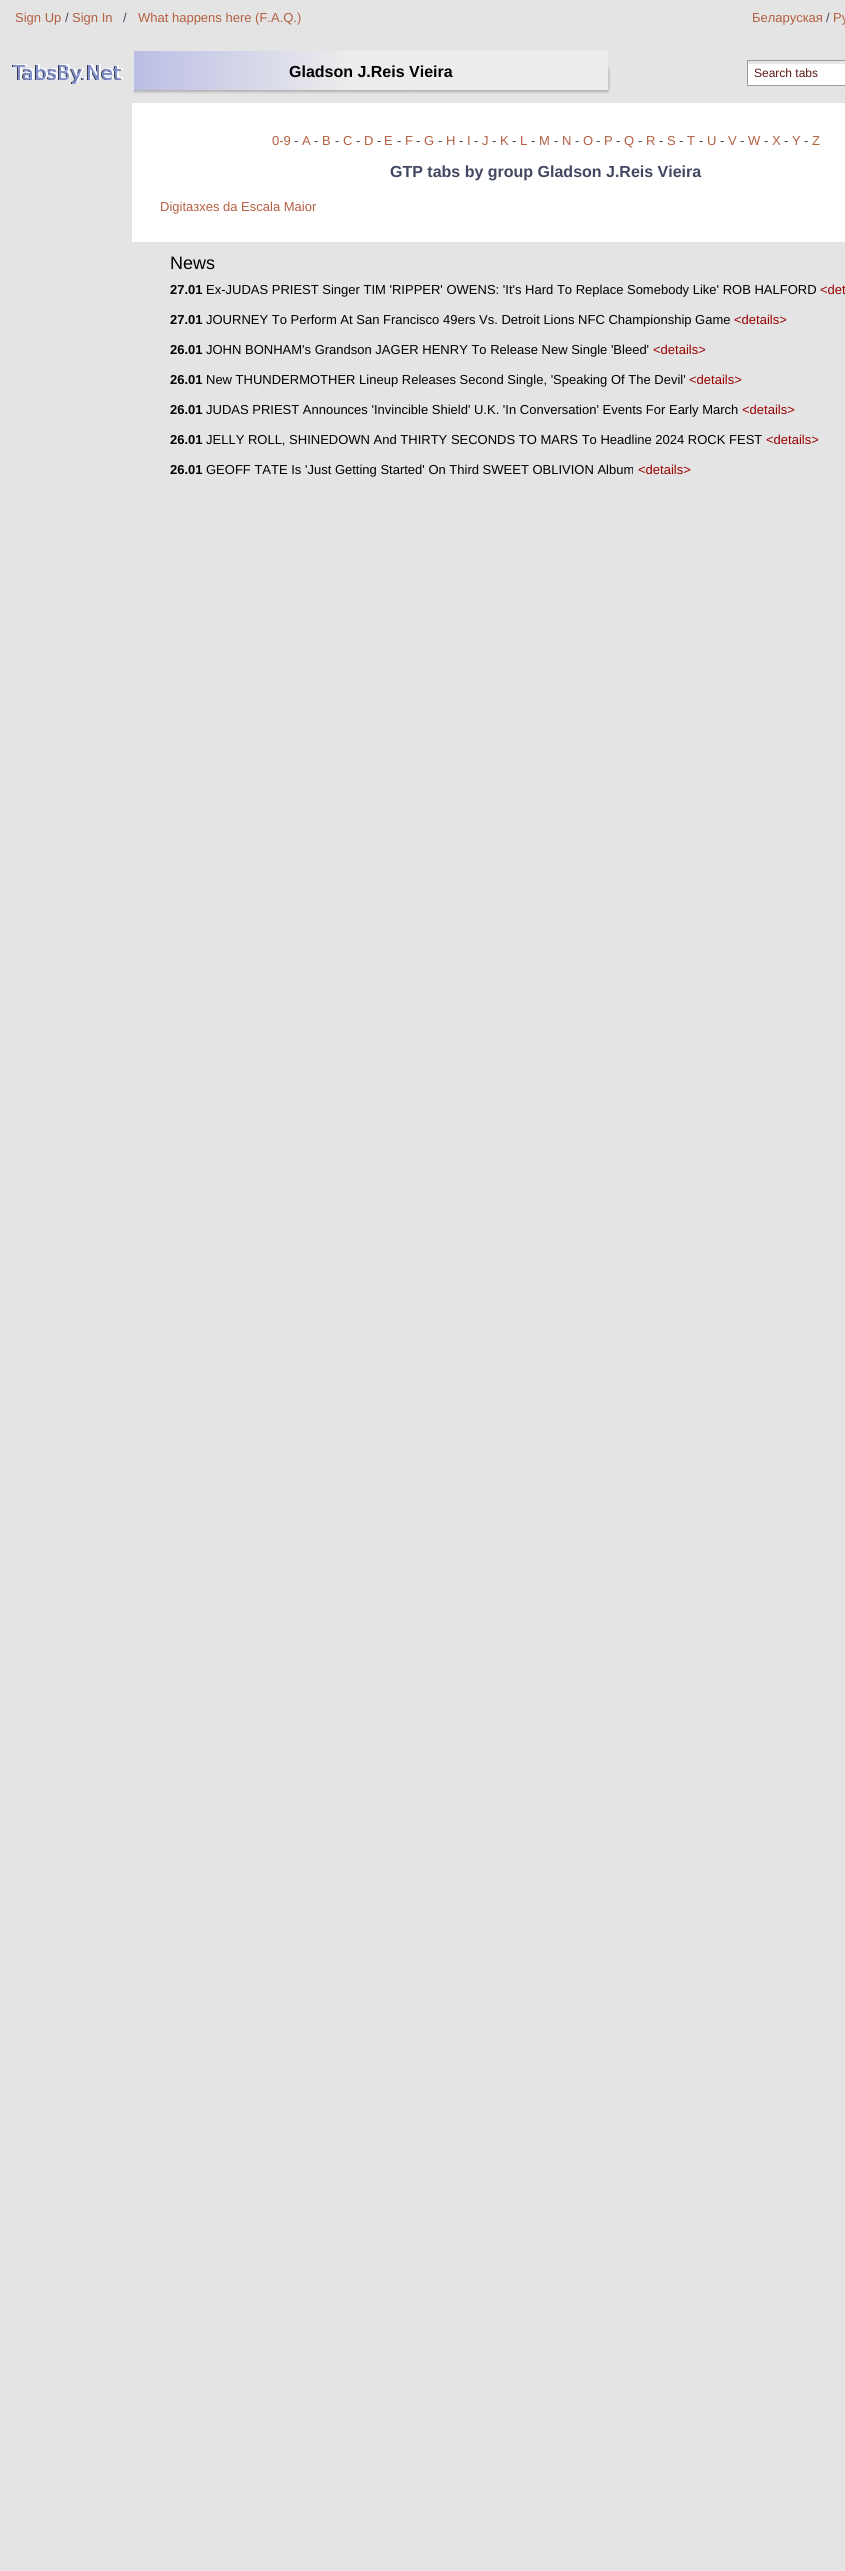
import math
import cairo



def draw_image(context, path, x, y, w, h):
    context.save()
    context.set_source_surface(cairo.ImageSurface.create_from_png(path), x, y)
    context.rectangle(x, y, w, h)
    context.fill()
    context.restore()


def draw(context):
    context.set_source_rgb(228 / 255, 228 / 255, 228 / 255)
    context.paint()
    draw_image(context, "images/1.png", 12, 64, 111, 20)
    context.set_source_rgb(220 / 255, 220 / 255, 220 / 255)
    context.rectangle(134, 93, 474, 1)
    context.fill()
    draw_image(context, "images/2.png", 134, 51, 474, 42)
    draw_image(context, "images/3.png", 608, 65, 3, 29)
    context.set_source_rgb(1, 1, 1)
    context.rectangle(748, 64, 97, 21)
    context.fill()
    context.set_source_rgb(231 / 255, 231 / 255, 231 / 255)
    context.rectangle(747, 61, 98, 3)
    context.fill()
    context.rectangle(747.5, 60.5, 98, 25)
    context.set_source_rgb(155 / 255, 155 / 255, 155 / 255)
    context.set_line_width(1)
    context.stroke()
    context.set_source_rgb(1, 1, 1)
    context.rectangle(132, 103, 713, 139)
    context.fill()
    context.select_font_face("Liberation Sans")
    context.set_font_size(13)
    context.set_source_rgb(179 / 255, 95 / 255, 65 / 255)
    context.move_to(15, 22)
    context.show_text("Sign Up")
    context.set_source_rgb(66 / 255, 71 / 255, 97 / 255)
    context.move_to(65, 22)
    context.show_text("/")
    context.set_source_rgb(179 / 255, 95 / 255, 65 / 255)
    context.move_to(72, 22)
    context.show_text("Sign In")
    context.set_source_rgb(66 / 255, 71 / 255, 97 / 255)
    context.move_to(123, 22)
    context.show_text("/")
    context.set_source_rgb(179 / 255, 95 / 255, 65 / 255)
    context.move_to(138, 22)
    context.show_text("What happens here (F.A.Q.)")
    context.move_to(752, 22)
    context.show_text("Беларуская")
    context.set_source_rgb(66 / 255, 71 / 255, 97 / 255)
    context.move_to(826, 22)
    context.show_text("/")
    context.set_source_rgb(179 / 255, 95 / 255, 65 / 255)
    context.move_to(833, 22)
    context.show_text("Ру")
    context.select_font_face("Liberation Sans", cairo.FontSlant.NORMAL, cairo.FontWeight.BOLD)
    context.set_font_size(16)
    context.set_source_rgb(0, 0, 0)
    context.move_to(289, 77)
    context.show_text("Gladson J.Reis Vieira")
    context.select_font_face("Liberation Sans")
    context.set_font_size(12)
    context.set_source_rgb(94 / 255, 25 / 255, 25 / 255)
    context.move_to(754, 77)
    context.show_text("Search tabs")
    context.set_font_size(13)
    context.set_source_rgb(179 / 255, 95 / 255, 65 / 255)
    context.move_to(272, 145)
    context.show_text("0-9")
    context.set_source_rgb(66 / 255, 71 / 255, 97 / 255)
    context.move_to(294, 145)
    context.show_text("-")
    context.set_source_rgb(179 / 255, 95 / 255, 65 / 255)
    context.move_to(302, 145)
    context.show_text("A")
    context.set_source_rgb(66 / 255, 71 / 255, 97 / 255)
    context.move_to(314, 145)
    context.show_text("-")
    context.set_source_rgb(179 / 255, 95 / 255, 65 / 255)
    context.move_to(322, 145)
    context.show_text("B")
    context.set_source_rgb(66 / 255, 71 / 255, 97 / 255)
    context.move_to(335, 145)
    context.show_text("-")
    context.set_source_rgb(179 / 255, 95 / 255, 65 / 255)
    context.move_to(343, 145)
    context.show_text("C")
    context.set_source_rgb(66 / 255, 71 / 255, 97 / 255)
    context.move_to(356, 145)
    context.show_text("-")
    context.set_source_rgb(179 / 255, 95 / 255, 65 / 255)
    context.move_to(364, 145)
    context.show_text("D")
    context.set_source_rgb(66 / 255, 71 / 255, 97 / 255)
    context.move_to(377, 145)
    context.show_text("-")
    context.set_source_rgb(179 / 255, 95 / 255, 65 / 255)
    context.move_to(384, 145)
    context.show_text("E")
    context.set_source_rgb(66 / 255, 71 / 255, 97 / 255)
    context.move_to(397, 145)
    context.show_text("-")
    context.set_source_rgb(179 / 255, 95 / 255, 65 / 255)
    context.move_to(405, 145)
    context.show_text("F")
    context.set_source_rgb(66 / 255, 71 / 255, 97 / 255)
    context.move_to(416, 145)
    context.show_text("-")
    context.set_source_rgb(179 / 255, 95 / 255, 65 / 255)
    context.move_to(424, 145)
    context.show_text("G")
    context.set_source_rgb(66 / 255, 71 / 255, 97 / 255)
    context.move_to(438, 145)
    context.show_text("-")
    context.set_source_rgb(179 / 255, 95 / 255, 65 / 255)
    context.move_to(446, 145)
    context.show_text("H")
    context.set_source_rgb(66 / 255, 71 / 255, 97 / 255)
    context.move_to(459, 145)
    context.show_text("-")
    context.set_source_rgb(179 / 255, 95 / 255, 65 / 255)
    context.move_to(467, 145)
    context.show_text("I")
    context.set_source_rgb(66 / 255, 71 / 255, 97 / 255)
    context.move_to(474, 145)
    context.show_text("-")
    context.set_source_rgb(179 / 255, 95 / 255, 65 / 255)
    context.move_to(482, 145)
    context.show_text("J")
    context.set_source_rgb(66 / 255, 71 / 255, 97 / 255)
    context.move_to(492, 145)
    context.show_text("-")
    context.set_source_rgb(179 / 255, 95 / 255, 65 / 255)
    context.move_to(500, 145)
    context.show_text("K")
    context.set_source_rgb(66 / 255, 71 / 255, 97 / 255)
    context.move_to(512, 145)
    context.show_text("-")
    context.set_source_rgb(179 / 255, 95 / 255, 65 / 255)
    context.move_to(520, 145)
    context.show_text("L")
    context.set_source_rgb(66 / 255, 71 / 255, 97 / 255)
    context.move_to(531, 145)
    context.show_text("-")
    context.set_source_rgb(179 / 255, 95 / 255, 65 / 255)
    context.move_to(539, 145)
    context.show_text("M")
    context.set_source_rgb(66 / 255, 71 / 255, 97 / 255)
    context.move_to(554, 145)
    context.show_text("-")
    context.set_source_rgb(179 / 255, 95 / 255, 65 / 255)
    context.move_to(562, 145)
    context.show_text("N")
    context.set_source_rgb(66 / 255, 71 / 255, 97 / 255)
    context.move_to(575, 145)
    context.show_text("-")
    context.set_source_rgb(179 / 255, 95 / 255, 65 / 255)
    context.move_to(583, 145)
    context.show_text("O")
    context.set_source_rgb(66 / 255, 71 / 255, 97 / 255)
    context.move_to(596, 145)
    context.show_text("-")
    context.set_source_rgb(179 / 255, 95 / 255, 65 / 255)
    context.move_to(604, 145)
    context.show_text("P")
    context.set_source_rgb(66 / 255, 71 / 255, 97 / 255)
    context.move_to(616, 145)
    context.show_text("-")
    context.set_source_rgb(179 / 255, 95 / 255, 65 / 255)
    context.move_to(624, 145)
    context.show_text("Q")
    context.set_source_rgb(66 / 255, 71 / 255, 97 / 255)
    context.move_to(638, 145)
    context.show_text("-")
    context.set_source_rgb(179 / 255, 95 / 255, 65 / 255)
    context.move_to(646, 145)
    context.show_text("R")
    context.set_source_rgb(66 / 255, 71 / 255, 97 / 255)
    context.move_to(659, 145)
    context.show_text("-")
    context.set_source_rgb(179 / 255, 95 / 255, 65 / 255)
    context.move_to(667, 145)
    context.show_text("S")
    context.set_source_rgb(66 / 255, 71 / 255, 97 / 255)
    context.move_to(679, 145)
    context.show_text("-")
    context.set_source_rgb(179 / 255, 95 / 255, 65 / 255)
    context.move_to(687, 145)
    context.show_text("T")
    context.set_source_rgb(66 / 255, 71 / 255, 97 / 255)
    context.move_to(699, 145)
    context.show_text("-")
    context.set_source_rgb(179 / 255, 95 / 255, 65 / 255)
    context.move_to(707, 145)
    context.show_text("U")
    context.set_source_rgb(66 / 255, 71 / 255, 97 / 255)
    context.move_to(720, 145)
    context.show_text("-")
    context.set_source_rgb(179 / 255, 95 / 255, 65 / 255)
    context.move_to(728, 145)
    context.show_text("V")
    context.set_source_rgb(66 / 255, 71 / 255, 97 / 255)
    context.move_to(740, 145)
    context.show_text("-")
    context.set_source_rgb(179 / 255, 95 / 255, 65 / 255)
    context.move_to(748, 145)
    context.show_text("W")
    context.set_source_rgb(66 / 255, 71 / 255, 97 / 255)
    context.move_to(764, 145)
    context.show_text("-")
    context.set_source_rgb(179 / 255, 95 / 255, 65 / 255)
    context.move_to(772, 145)
    context.show_text("X")
    context.set_source_rgb(66 / 255, 71 / 255, 97 / 255)
    context.move_to(784, 145)
    context.show_text("-")
    context.set_source_rgb(179 / 255, 95 / 255, 65 / 255)
    context.move_to(792, 145)
    context.show_text("Y")
    context.set_source_rgb(66 / 255, 71 / 255, 97 / 255)
    context.move_to(804, 145)
    context.show_text("-")
    context.set_source_rgb(179 / 255, 95 / 255, 65 / 255)
    context.move_to(812, 145)
    context.show_text("Z")
    context.select_font_face("Liberation Sans", cairo.FontSlant.NORMAL, cairo.FontWeight.BOLD)
    context.set_font_size(16)
    context.set_source_rgb(66 / 255, 71 / 255, 97 / 255)
    context.move_to(390, 177)
    context.show_text("GTP tabs by group Gladson J.Reis Vieira")
    context.select_font_face("Liberation Sans")
    context.set_font_size(13)
    context.set_source_rgb(179 / 255, 95 / 255, 65 / 255)
    context.move_to(160, 211)
    context.show_text("Digitaзхes da Escala Maior")
    context.set_font_size(18)
    context.set_source_rgb(0, 0, 0)
    context.move_to(170, 269)
    context.show_text("News")
    context.select_font_face("Liberation Sans", cairo.FontSlant.NORMAL, cairo.FontWeight.BOLD)
    context.set_font_size(13)
    context.move_to(170, 294)
    context.show_text("27.01")
    context.select_font_face("Liberation Sans")
    context.move_to(206, 294)
    context.show_text("Ex-JUDAS PRIEST Singer TIM 'RIPPER' OWENS: 'It's Hard To Replace Somebody Like' ROB HALFORD")
    context.set_source_rgb(153 / 255, 0, 0)
    context.move_to(820, 294)
    context.show_text("<det")
    context.select_font_face("Liberation Sans", cairo.FontSlant.NORMAL, cairo.FontWeight.BOLD)
    context.set_source_rgb(0, 0, 0)
    context.move_to(170, 324)
    context.show_text("27.01")
    context.select_font_face("Liberation Sans")
    context.move_to(206, 324)
    context.show_text("JOURNEY To Perform At San Francisco 49ers Vs. Detroit Lions NFC Championship Game")
    context.set_source_rgb(153 / 255, 0, 0)
    context.move_to(734, 324)
    context.show_text("<details>")
    context.select_font_face("Liberation Sans", cairo.FontSlant.NORMAL, cairo.FontWeight.BOLD)
    context.set_source_rgb(0, 0, 0)
    context.move_to(170, 354)
    context.show_text("26.01")
    context.select_font_face("Liberation Sans")
    context.move_to(206, 354)
    context.show_text("JOHN BONHAM's Grandson JAGER HENRY To Release New Single 'Bleed'")
    context.set_source_rgb(153 / 255, 0, 0)
    context.move_to(653, 354)
    context.show_text("<details>")
    context.select_font_face("Liberation Sans", cairo.FontSlant.NORMAL, cairo.FontWeight.BOLD)
    context.set_source_rgb(0, 0, 0)
    context.move_to(170, 384)
    context.show_text("26.01")
    context.select_font_face("Liberation Sans")
    context.move_to(206, 384)
    context.show_text("New THUNDERMOTHER Lineup Releases Second Single, 'Speaking Of The Devil'")
    context.set_source_rgb(153 / 255, 0, 0)
    context.move_to(689, 384)
    context.show_text("<details>")
    context.select_font_face("Liberation Sans", cairo.FontSlant.NORMAL, cairo.FontWeight.BOLD)
    context.set_source_rgb(0, 0, 0)
    context.move_to(170, 414)
    context.show_text("26.01")
    context.select_font_face("Liberation Sans")
    context.move_to(206, 414)
    context.show_text("JUDAS PRIEST Announces 'Invincible Shield' U.K. 'In Conversation' Events For Early March")
    context.set_source_rgb(153 / 255, 0, 0)
    context.move_to(742, 414)
    context.show_text("<details>")
    context.select_font_face("Liberation Sans", cairo.FontSlant.NORMAL, cairo.FontWeight.BOLD)
    context.set_source_rgb(0, 0, 0)
    context.move_to(170, 444)
    context.show_text("26.01")
    context.select_font_face("Liberation Sans")
    context.move_to(206, 444)
    context.show_text("JELLY ROLL, SHINEDOWN And THIRTY SECONDS TO MARS To Headline 2024 ROCK FEST")
    context.set_source_rgb(153 / 255, 0, 0)
    context.move_to(766, 444)
    context.show_text("<details>")
    context.select_font_face("Liberation Sans", cairo.FontSlant.NORMAL, cairo.FontWeight.BOLD)
    context.set_source_rgb(0, 0, 0)
    context.move_to(170, 474)
    context.show_text("26.01")
    context.select_font_face("Liberation Sans")
    context.move_to(206, 474)
    context.show_text("GEOFF TATE Is 'Just Getting Started' On Third SWEET OBLIVION Album")
    context.set_source_rgb(153 / 255, 0, 0)
    context.move_to(638, 474)
    context.show_text("<details>")


surface = cairo.ImageSurface(cairo.Format.RGB24, 845, 2571)
context = cairo.Context(surface)
options = cairo.FontOptions()
options.set_hint_metrics(cairo.HintMetrics.OFF)
options.set_hint_style(cairo.HintStyle.NONE)
context.set_font_options(options)
context.set_miter_limit(4)
draw(context)
surface.write_to_png("out.png")
